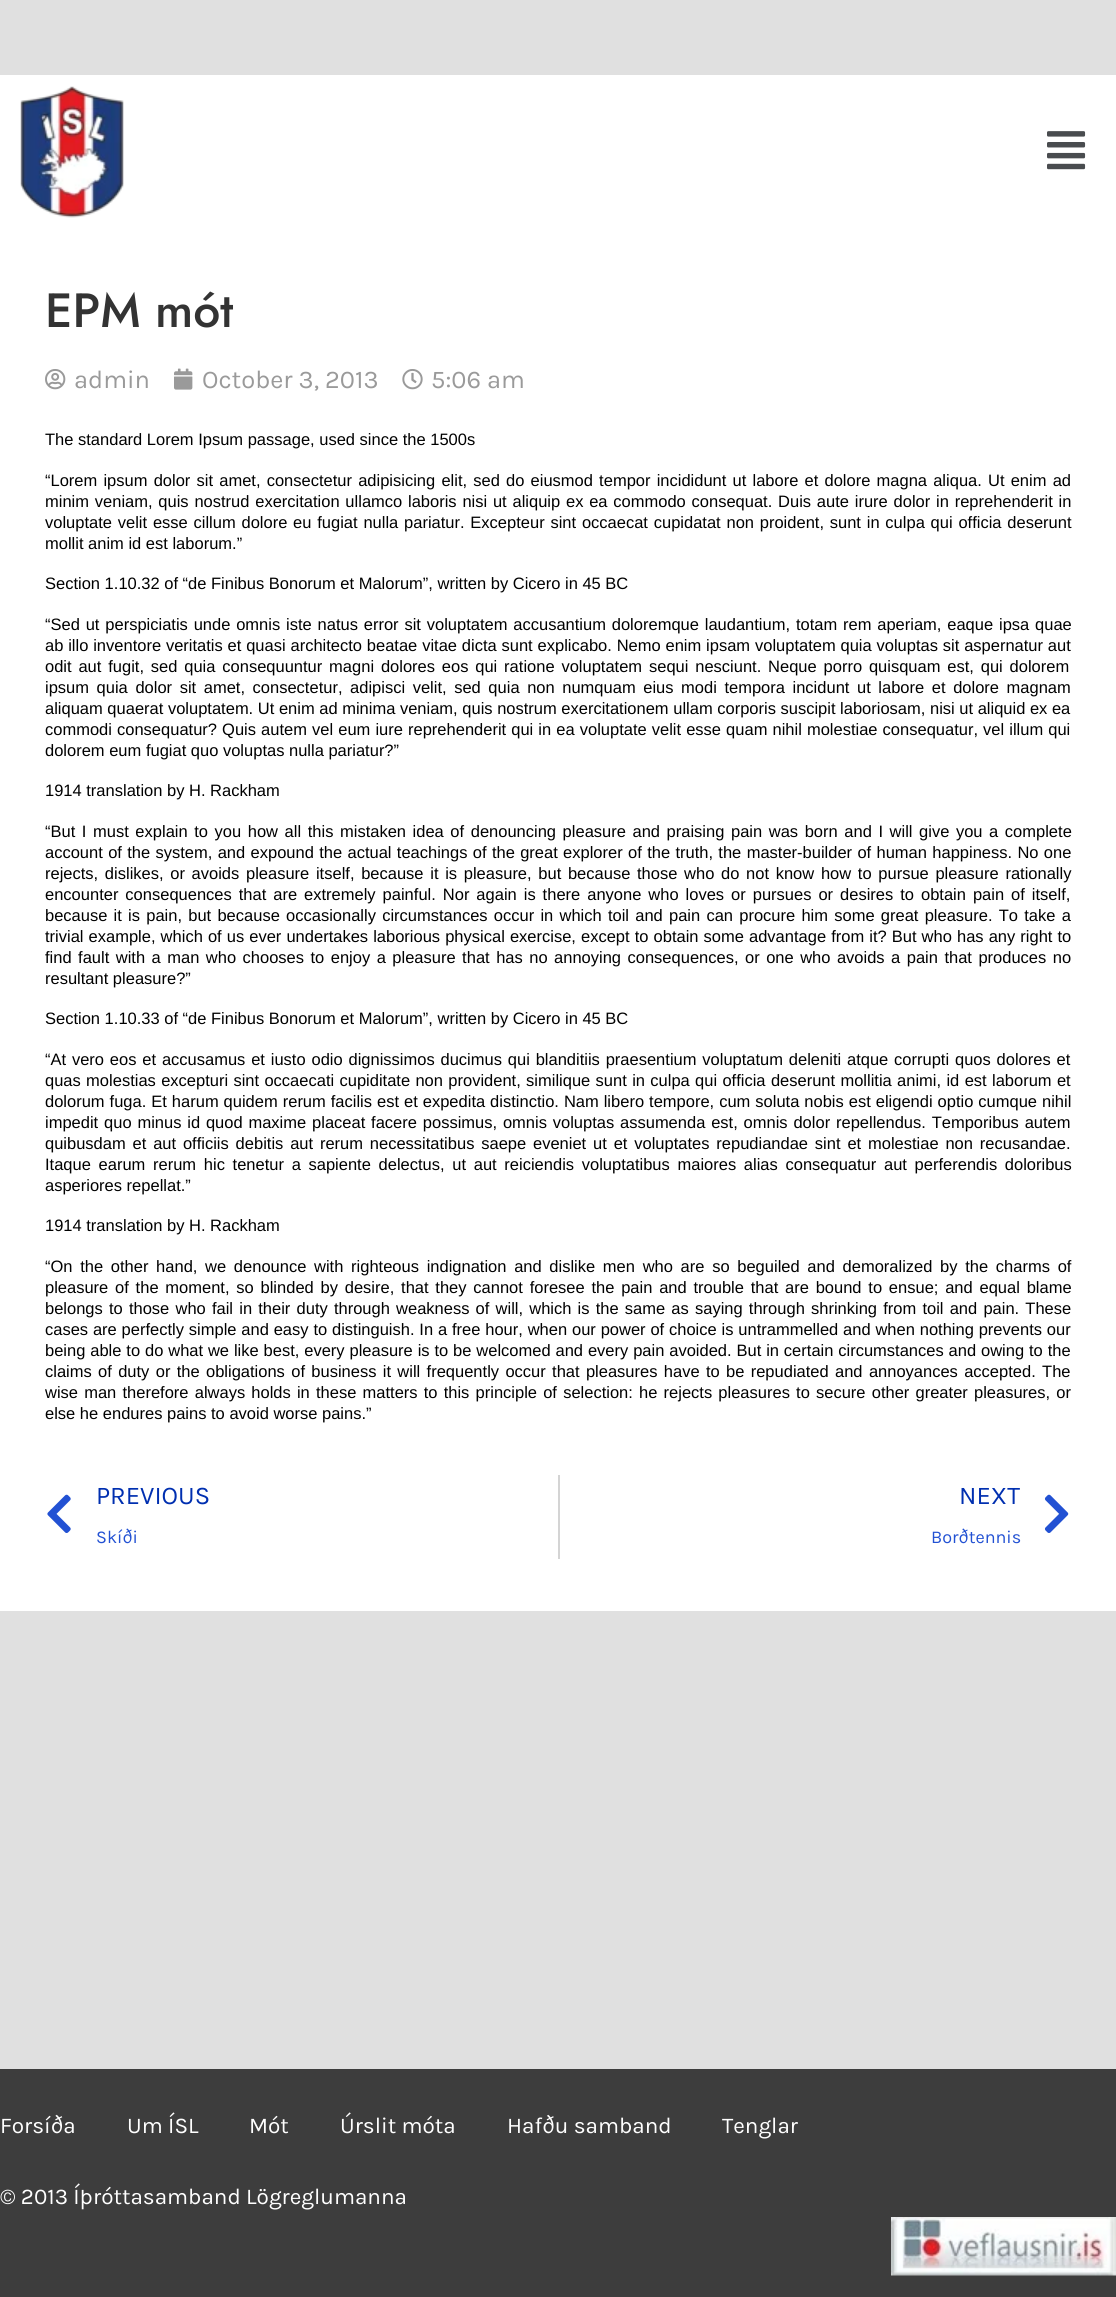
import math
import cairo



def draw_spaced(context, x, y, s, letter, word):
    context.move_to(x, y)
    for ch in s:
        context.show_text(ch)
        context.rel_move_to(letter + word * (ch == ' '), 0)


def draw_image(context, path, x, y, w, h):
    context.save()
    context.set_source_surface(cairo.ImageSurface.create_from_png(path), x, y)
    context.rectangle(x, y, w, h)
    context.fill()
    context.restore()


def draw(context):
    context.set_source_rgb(224 / 255, 224 / 255, 224 / 255)
    context.paint()
    context.set_source_rgb(1, 1, 1)
    context.rectangle(0, 75, 1116, 1536)
    context.fill()
    draw_image(context, "images/1.png", 20, 86, 104, 132)
    draw_image(context, "images/2.png", 1047, 131, 39, 39)
    draw_image(context, "images/3.png", 45, 369, 21, 21)
    draw_image(context, "images/4.png", 174, 368, 19, 22)
    draw_image(context, "images/5.png", 402, 369, 21, 21)
    draw_image(context, "images/6.png", 47, 1494, 24, 39)
    context.set_source_rgb(212 / 255, 212 / 255, 212 / 255)
    context.rectangle(558, 1475, 2, 84)
    context.fill()
    draw_image(context, "images/7.png", 1044, 1494, 25, 39)
    context.set_source_rgb(61 / 255, 61 / 255, 61 / 255)
    context.rectangle(0, 2069, 1116, 228)
    context.fill()
    draw_image(context, "images/8.png", 891, 2217, 225, 59)
    context.select_font_face("Jost Medium")
    context.set_font_size(48)
    context.set_source_rgb(51 / 255, 51 / 255, 51 / 255)
    context.move_to(45, 327)
    context.show_text("EPM mót")
    context.select_font_face("Karla")
    context.set_font_size(25.5)
    context.set_source_rgb(154 / 255, 154 / 255, 154 / 255)
    context.move_to(74, 388)
    context.show_text("admin")
    context.move_to(202, 388)
    context.show_text("October 3, 2013")
    context.move_to(431, 388)
    context.show_text("5:06 am")
    context.select_font_face("Liberation Sans")
    context.set_font_size(16.5)
    context.set_source_rgb(0, 0, 0)
    context.move_to(45, 445)
    context.show_text("The standard Lorem Ipsum passage, used since the 1500s")
    draw_spaced(context, 45, 486, "“Lorem ipsum dolor sit amet, consectetur adipisicing elit, sed do eiusmod tempor incididunt ut labore et dolore magna aliqua. Ut enim ad", 0, 1.6)
    draw_spaced(context, 45, 507, "minim veniam, quis nostrud exercitation ullamco laboris nisi ut aliquip ex ea commodo consequat. Duis aute irure dolor in reprehenderit in", 0, 1.2)
    draw_spaced(context, 45, 528, "voluptate velit esse cillum dolore eu fugiat nulla pariatur. Excepteur sint occaecat cupidatat non proident, sunt in culpa qui officia deserunt", 0, 1.2)
    context.move_to(45, 549)
    context.show_text("mollit anim id est laborum.”")
    context.move_to(45, 589)
    context.show_text("Section 1.10.32 of “de Finibus Bonorum et Malorum”, written by Cicero in 45 BC")
    draw_spaced(context, 45, 630, "“Sed ut perspiciatis unde omnis iste natus error sit voluptatem accusantium doloremque laudantium, totam rem aperiam, eaque ipsa quae", 0, 1.25)
    draw_spaced(context, 45, 651, "ab illo inventore veritatis et quasi architecto beatae vitae dicta sunt explicabo. Nemo enim ipsam voluptatem quia voluptas sit aspernatur aut", 0, 0.25)
    draw_spaced(context, 45, 672, "odit aut fugit, sed quia consequuntur magni dolores eos qui ratione voluptatem sequi nesciunt. Neque porro quisquam est, qui dolorem", 0, 2.25)
    draw_spaced(context, 45, 693, "ipsum quia dolor sit amet, consectetur, adipisci velit, sed quia non numquam eius modi tempora incidunt ut labore et dolore magnam", 0, 3)
    context.move_to(45, 714)
    context.show_text("aliquam quaerat voluptatem. Ut enim ad minima veniam, quis nostrum exercitationem ullam corporis suscipit laboriosam, nisi ut aliquid ex ea")
    draw_spaced(context, 45, 735, "commodi consequatur? Quis autem vel eum iure reprehenderit qui in ea voluptate velit esse quam nihil molestiae consequatur, vel illum qui", 0, 0.5)
    context.move_to(45, 756)
    context.show_text("dolorem eum fugiat quo voluptas nulla pariatur?”")
    context.move_to(45, 796)
    context.show_text("1914 translation by H. Rackham")
    draw_spaced(context, 45, 837, "“But I must explain to you how all this mistaken idea of denouncing pleasure and praising pain was born and I will give you a complete", 0, 2)
    draw_spaced(context, 45, 858, "account of the system, and expound the actual teachings of the great explorer of the truth, the master-builder of human happiness. No one", 0, 0.75)
    draw_spaced(context, 45, 879, "rejects, dislikes, or avoids pleasure itself, because it is pleasure, but because those who do not know how to pursue pleasure rationally", 0, 2.1)
    draw_spaced(context, 45, 900, "encounter consequences that are extremely painful. Nor again is there anyone who loves or pursues or desires to obtain pain of itself,", 0, 2.4)
    draw_spaced(context, 45, 921, "because it is pain, but because occasionally circumstances occur in which toil and pain can procure him some great pleasure. To take a", 0, 1.65)
    draw_spaced(context, 45, 942, "trivial example, which of us ever undertakes laborious physical exercise, except to obtain some advantage from it? But who has any right to", 0, 0.5)
    draw_spaced(context, 45, 963, "find fault with a man who chooses to enjoy a pleasure that has no annoying consequences, or one who avoids a pain that produces no", 0, 1.9)
    context.move_to(45, 984)
    context.show_text("resultant pleasure?”")
    context.move_to(45, 1024)
    context.show_text("Section 1.10.33 of “de Finibus Bonorum et Malorum”, written by Cicero in 45 BC")
    draw_spaced(context, 45, 1065, "“At vero eos et accusamus et iusto odio dignissimos ducimus qui blanditiis praesentium voluptatum deleniti atque corrupti quos dolores et", 0, 1.25)
    draw_spaced(context, 45, 1086, "quas molestias excepturi sint occaecati cupiditate non provident, similique sunt in culpa qui officia deserunt mollitia animi, id est laborum et", 0, 0.75)
    draw_spaced(context, 45, 1107, "dolorum fuga. Et harum quidem rerum facilis est et expedita distinctio. Nam libero tempore, cum soluta nobis est eligendi optio cumque nihil", 0, 0.4)
    draw_spaced(context, 45, 1128, "impedit quo minus id quod maxime placeat facere possimus, omnis voluptas assumenda est, omnis dolor repellendus. Temporibus autem", 0, 1.25)
    draw_spaced(context, 45, 1149, "quibusdam et aut officiis debitis aut rerum necessitatibus saepe eveniet ut et voluptates repudiandae sint et molestiae non recusandae.", 0, 2.25)
    draw_spaced(context, 45, 1170, "Itaque earum rerum hic tenetur a sapiente delectus, ut aut reiciendis voluptatibus maiores alias consequatur aut perferendis doloribus", 0, 3.1)
    context.move_to(45, 1191)
    context.show_text("asperiores repellat.”")
    context.move_to(45, 1231)
    context.show_text("1914 translation by H. Rackham")
    draw_spaced(context, 45, 1272, "“On the other hand, we denounce with righteous indignation and dislike men who are so beguiled and demoralized by the charms of", 0, 3.1)
    draw_spaced(context, 45, 1293, "pleasure of the moment, so blinded by desire, that they cannot foresee the pain and trouble that are bound to ensue; and equal blame", 0, 2.2)
    draw_spaced(context, 45, 1314, "belongs to those who fail in their duty through weakness of will, which is the same as saying through shrinking from toil and pain. These", 0, 1.6)
    draw_spaced(context, 45, 1335, "cases are perfectly simple and easy to distinguish. In a free hour, when our power of choice is untrammelled and when nothing prevents our", 0, 0.25)
    draw_spaced(context, 45, 1356, "being able to do what we like best, every pleasure is to be welcomed and every pain avoided. But in certain circumstances and owing to the", 0, 0.3)
    draw_spaced(context, 45, 1377, "claims of duty or the obligations of business it will frequently occur that pleasures have to be repudiated and annoyances accepted. The", 0, 1.75)
    draw_spaced(context, 45, 1398, "wise man therefore always holds in these matters to this principle of selection: he rejects pleasures to secure other greater pleasures, or", 0, 1.6)
    context.move_to(45, 1419)
    context.show_text("else he endures pains to avoid worse pains.”")
    context.select_font_face("Karla")
    context.set_font_size(25.5)
    context.set_source_rgb(0, 47 / 255, 176 / 255)
    context.move_to(96, 1504)
    context.show_text("PREVIOUS")
    context.set_font_size(18)
    context.set_source_rgb(34 / 255, 81 / 255, 211 / 255)
    context.move_to(96, 1543)
    context.show_text("Skíði")
    context.set_font_size(25.5)
    context.set_source_rgb(0, 47 / 255, 176 / 255)
    context.move_to(959, 1504)
    context.show_text("NEXT")
    context.set_font_size(18)
    context.set_source_rgb(34 / 255, 81 / 255, 211 / 255)
    context.move_to(931, 1543)
    context.show_text("Borðtennis")
    context.set_font_size(22.5)
    context.set_source_rgb(1, 1, 1)
    context.move_to(0, 2133)
    context.show_text("Forsíða")
    context.move_to(127, 2133)
    context.show_text("Um ÍSL")
    context.move_to(249, 2133)
    context.show_text("Mót")
    context.move_to(340, 2133)
    context.show_text("Úrslit móta")
    context.move_to(507, 2133)
    context.show_text("Hafðu samband")
    context.move_to(722, 2133)
    context.show_text("Tenglar")
    context.move_to(0, 2204)
    context.show_text("© 2013 Íþróttasamband Lögreglumanna")


surface = cairo.ImageSurface(cairo.Format.RGB24, 1116, 2297)
context = cairo.Context(surface)
options = cairo.FontOptions()
options.set_hint_metrics(cairo.HintMetrics.OFF)
options.set_hint_style(cairo.HintStyle.NONE)
context.set_font_options(options)
context.set_miter_limit(4)
draw(context)
surface.write_to_png("out.png")
